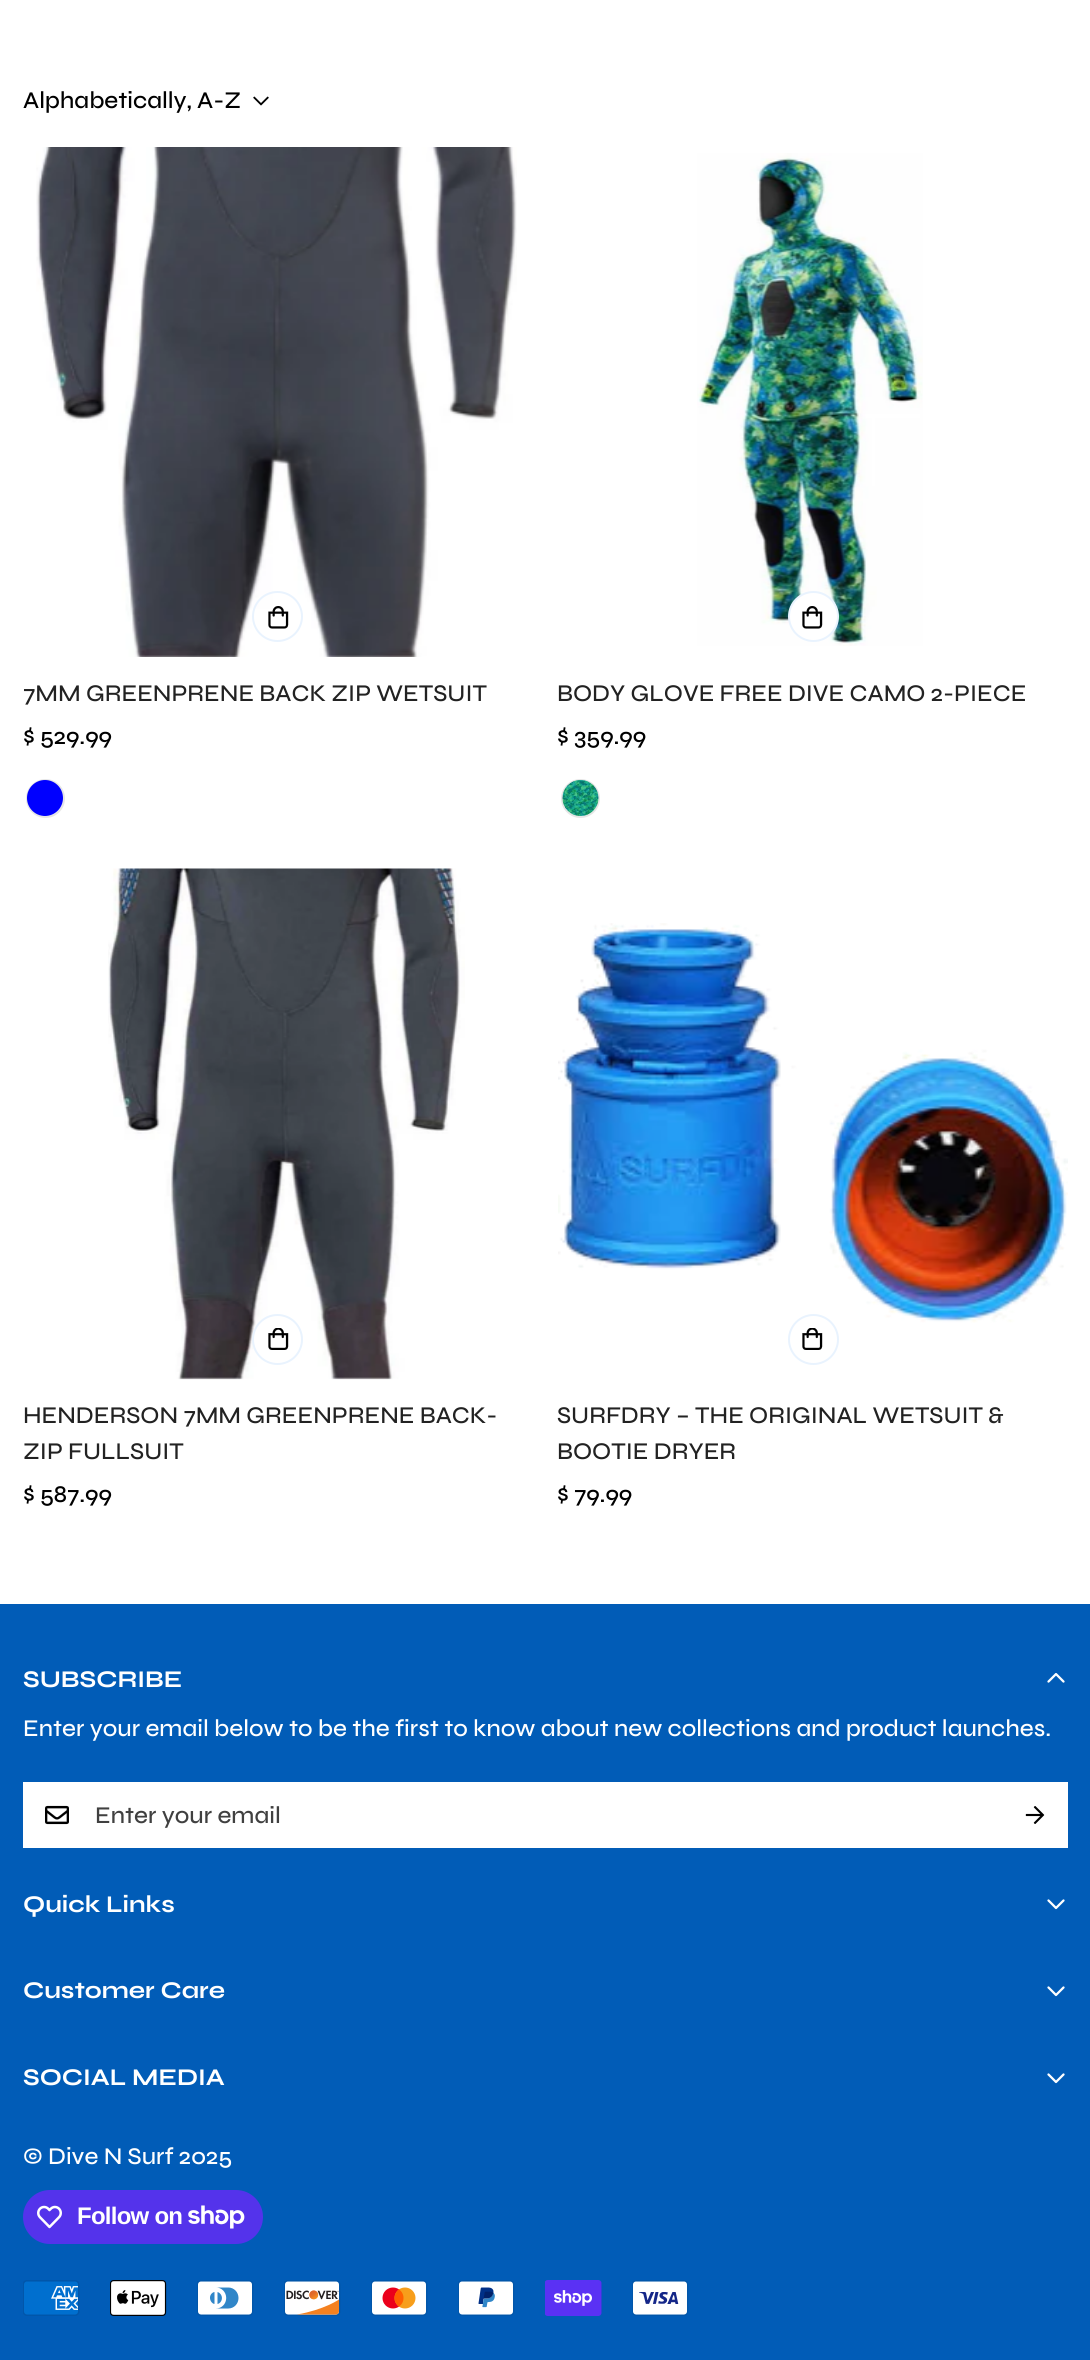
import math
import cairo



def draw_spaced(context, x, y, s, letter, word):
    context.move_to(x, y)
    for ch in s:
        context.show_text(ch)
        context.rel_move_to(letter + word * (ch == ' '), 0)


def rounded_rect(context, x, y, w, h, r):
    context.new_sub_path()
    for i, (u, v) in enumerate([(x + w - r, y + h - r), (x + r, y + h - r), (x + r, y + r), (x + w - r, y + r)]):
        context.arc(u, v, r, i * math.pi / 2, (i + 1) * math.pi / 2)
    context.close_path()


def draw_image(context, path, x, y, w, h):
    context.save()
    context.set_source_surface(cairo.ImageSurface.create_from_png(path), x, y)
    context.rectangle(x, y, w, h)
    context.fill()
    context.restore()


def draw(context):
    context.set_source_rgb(1, 1, 1)
    context.paint()
    draw_image(context, "images/1.png", 253, 96, 16, 10)
    draw_image(context, "images/2.png", 36, 147, 481, 510)
    context.arc(277.5, 616.5, 24.5, 0, 2 * math.pi)
    context.set_source_rgb(233 / 255, 243 / 255, 254 / 255)
    context.stroke()
    draw_image(context, "images/3.png", 268, 606, 21, 23)
    context.arc(45.5, 798.5, 18.5, 0, 2 * math.pi)
    context.set_source_rgb(230 / 255, 230 / 255, 230 / 255)
    context.stroke()
    context.set_source_rgb(0, 0, 1)
    context.arc(45, 798, 18, 0, 2 * math.pi)
    context.fill()
    draw_image(context, "images/4.png", 697, 153, 226, 493)
    context.set_source_rgb(1, 1, 1)
    context.arc(813.5, 616.5, 24.5, 0, 2 * math.pi)
    context.fill_preserve()
    context.set_source_rgb(233 / 255, 243 / 255, 254 / 255)
    context.stroke()
    draw_image(context, "images/3.png", 802, 606, 21, 23)
    context.arc(580.5, 798.5, 18.5, 0, 2 * math.pi)
    context.set_source_rgb(230 / 255, 230 / 255, 230 / 255)
    context.stroke()
    draw_image(context, "images/5.png", 562, 780, 37, 36)
    draw_image(context, "images/6.png", 108, 868, 357, 512)
    context.set_source_rgb(1, 1, 1)
    context.arc(277.5, 1339.5, 24.5, 0, 2 * math.pi)
    context.fill_preserve()
    context.set_source_rgb(233 / 255, 243 / 255, 254 / 255)
    context.stroke()
    draw_image(context, "images/7.png", 268, 1328, 21, 22)
    draw_image(context, "images/8.png", 558, 923, 510, 400)
    context.arc(813.5, 1339.5, 24.5, 0, 2 * math.pi)
    context.stroke()
    draw_image(context, "images/7.png", 802, 1328, 21, 22)
    context.set_source_rgb(1 / 255, 92 / 255, 183 / 255)
    context.rectangle(0, 1604, 1090, 756)
    context.fill()
    draw_image(context, "images/9.png", 1047, 1673, 18, 10)
    context.set_source_rgb(1, 1, 1)
    context.rectangle(23, 1782, 1045, 66)
    context.fill()
    draw_image(context, "images/10.png", 45, 1805, 24, 20)
    draw_image(context, "images/11.png", 1025, 1806, 20, 18)
    draw_image(context, "images/12.png", 1047, 1899, 18, 11)
    draw_image(context, "images/12.png", 1047, 1986, 18, 11)
    draw_image(context, "images/12.png", 1047, 2073, 18, 11)
    context.set_source_rgb(84 / 255, 51 / 255, 235 / 255)
    rounded_rect(context, 23, 2190, 240, 54, 27)
    context.fill()
    draw_image(context, "images/13.png", 37, 2205, 25, 24)
    draw_image(context, "images/14.png", 188, 2205, 57, 24)
    draw_image(context, "images/15.png", 23, 2280, 57, 36)
    draw_image(context, "images/16.png", 110, 2280, 57, 36)
    draw_image(context, "images/17.png", 197, 2280, 57, 36)
    draw_image(context, "images/18.png", 284, 2280, 57, 36)
    draw_image(context, "images/19.png", 371, 2280, 57, 36)
    draw_image(context, "images/20.png", 458, 2280, 57, 36)
    draw_image(context, "images/21.png", 545, 2280, 57, 36)
    draw_image(context, "images/22.png", 632, 2280, 57, 36)
    context.select_font_face("Syne Medium")
    context.set_font_size(24)
    context.set_source_rgb(0, 0, 0)
    context.move_to(23, 108)
    context.show_text("Alphabetically, A-Z")
    context.set_source_rgb(34 / 255, 34 / 255, 34 / 255)
    context.move_to(23, 701)
    context.show_text("7MM GREENPRENE BACK ZIP WETSUIT")
    context.set_source_rgb(0, 0, 0)
    context.move_to(23, 744)
    context.show_text("$ 529.99")
    context.set_source_rgb(34 / 255, 34 / 255, 34 / 255)
    context.move_to(557, 701)
    context.show_text("BODY GLOVE FREE DIVE CAMO 2-PIECE")
    context.set_source_rgb(0, 0, 0)
    context.move_to(557, 744)
    context.show_text("$ 359.99")
    context.set_source_rgb(34 / 255, 34 / 255, 34 / 255)
    context.move_to(23, 1423)
    context.show_text("HENDERSON 7MM GREENPRENE BACK-")
    context.move_to(23, 1459)
    context.show_text("ZIP FULLSUIT")
    context.set_source_rgb(0, 0, 0)
    context.move_to(23, 1502)
    context.show_text("$ 587.99")
    context.set_source_rgb(34 / 255, 34 / 255, 34 / 255)
    context.move_to(557, 1423)
    context.show_text("SURFDRY – THE ORIGINAL WETSUIT &")
    context.move_to(557, 1459)
    context.show_text("BOOTIE DRYER")
    context.set_source_rgb(0, 0, 0)
    context.move_to(557, 1502)
    context.show_text("$ 79.99")
    context.select_font_face("Syne", cairo.FontSlant.NORMAL, cairo.FontWeight.BOLD)
    context.set_source_rgb(1, 1, 1)
    context.move_to(23, 1687)
    context.show_text("SUBSCRIBE")
    context.select_font_face("Syne Medium")
    context.move_to(23, 1736)
    context.show_text("Enter your email below to be the first to know about new collections and product launches.")
    context.set_source_rgb(64 / 255, 64 / 255, 64 / 255)
    context.move_to(95, 1823)
    context.show_text("Enter your email")
    context.select_font_face("Syne", cairo.FontSlant.NORMAL, cairo.FontWeight.BOLD)
    context.set_source_rgb(1, 1, 1)
    context.move_to(23, 1912)
    context.show_text("Quick Links")
    context.move_to(23, 1998)
    context.show_text("Customer Care")
    context.move_to(23, 2085)
    context.show_text("SOCIAL MEDIA")
    context.select_font_face("Syne Medium")
    context.move_to(23, 2164)
    context.show_text("© Dive N Surf 2025")
    context.select_font_face("Liberation Sans", cairo.FontSlant.NORMAL, cairo.FontWeight.BOLD)
    draw_spaced(context, 77, 2224, "Follow on", -0.75, 0)


surface = cairo.ImageSurface(cairo.Format.RGB24, 1090, 2360)
context = cairo.Context(surface)
options = cairo.FontOptions()
options.set_hint_metrics(cairo.HintMetrics.OFF)
options.set_hint_style(cairo.HintStyle.NONE)
context.set_font_options(options)
context.set_miter_limit(4)
draw(context)
surface.write_to_png("out.png")
